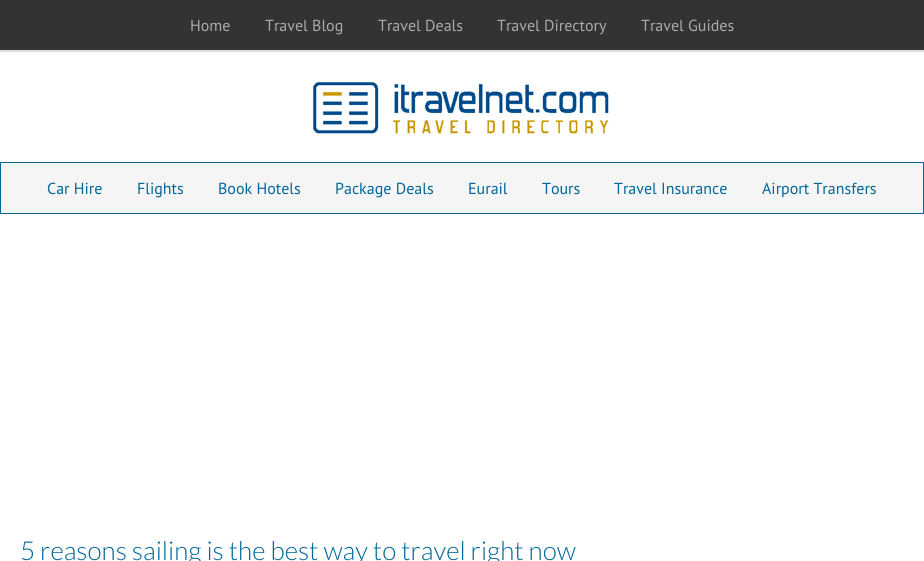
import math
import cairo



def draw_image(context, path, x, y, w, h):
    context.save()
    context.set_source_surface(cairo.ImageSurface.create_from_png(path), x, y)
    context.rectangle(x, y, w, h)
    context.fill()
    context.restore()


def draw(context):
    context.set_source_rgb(1, 1, 1)
    context.paint()
    context.set_source_rgb(51 / 255, 51 / 255, 51 / 255)
    context.rectangle(0, 0, 924, 50)
    context.fill()
    context.set_source_rgb(221 / 255, 221 / 255, 221 / 255)
    context.rectangle(0, 50, 924, 2)
    context.fill()
    draw_image(context, "images/1.png", 313, 82, 296, 52)
    context.set_source_rgb(245 / 255, 245 / 255, 245 / 255)
    context.rectangle(0.5, 162.5, 923, 51)
    context.fill_preserve()
    context.set_source_rgb(0, 102 / 255, 153 / 255)
    context.set_line_width(1)
    context.stroke()
    context.select_font_face("PT Sans")
    context.set_font_size(16)
    context.set_source_rgb(170 / 255, 170 / 255, 170 / 255)
    context.move_to(190, 31)
    context.show_text("Home")
    context.move_to(265, 31)
    context.show_text("Travel Blog")
    context.move_to(378, 31)
    context.show_text("Travel Deals")
    context.move_to(497, 31)
    context.show_text("Travel Directory")
    context.move_to(641, 31)
    context.show_text("Travel Guides")
    context.set_source_rgb(0, 102 / 255, 153 / 255)
    context.move_to(47, 194)
    context.show_text("Car Hire")
    context.move_to(137, 194)
    context.show_text("Flights")
    context.move_to(218, 194)
    context.show_text("Book Hotels")
    context.move_to(335, 194)
    context.show_text("Package Deals")
    context.move_to(468, 194)
    context.show_text("Eurail")
    context.move_to(542, 194)
    context.show_text("Tours")
    context.move_to(614, 194)
    context.show_text("Travel Insurance")
    context.move_to(762, 194)
    context.show_text("Airport Transfers")
    context.select_font_face("Lato Light")
    context.set_font_size(26)
    context.move_to(20, 560)
    context.show_text("5 reasons sailing is the best way to travel right now")


surface = cairo.ImageSurface(cairo.Format.RGB24, 924, 561)
context = cairo.Context(surface)
options = cairo.FontOptions()
options.set_hint_metrics(cairo.HintMetrics.OFF)
options.set_hint_style(cairo.HintStyle.NONE)
context.set_font_options(options)
context.set_miter_limit(4)
draw(context)
surface.write_to_png("out.png")
